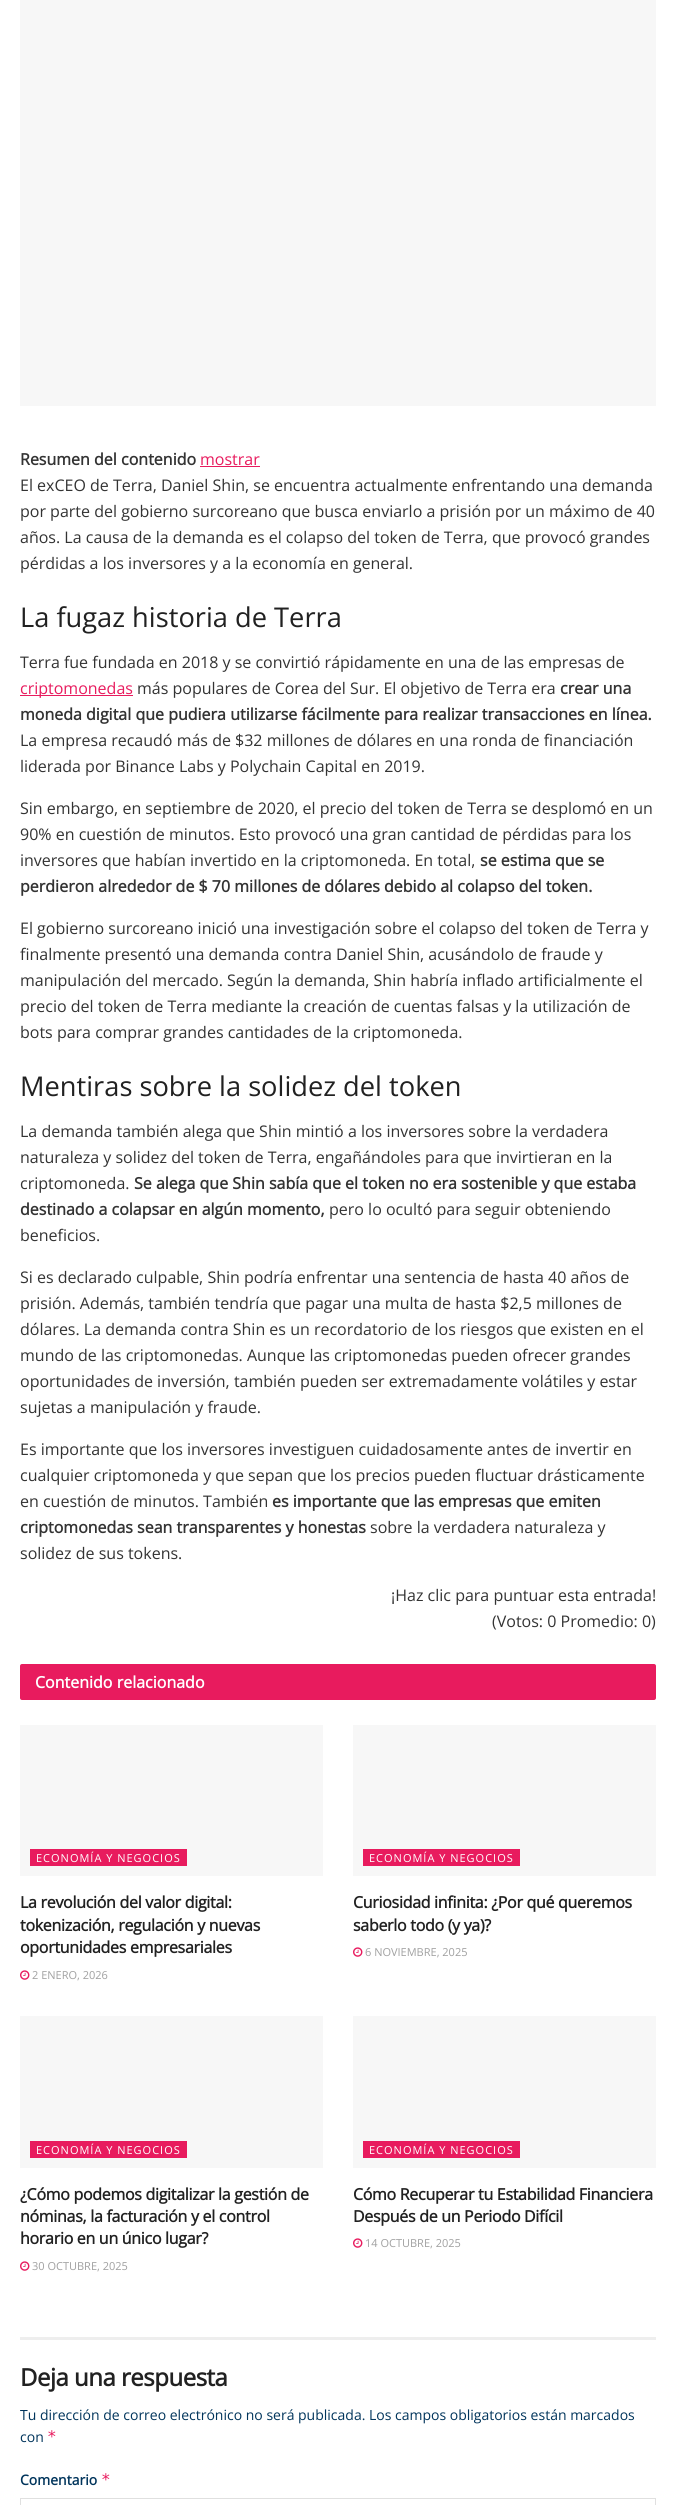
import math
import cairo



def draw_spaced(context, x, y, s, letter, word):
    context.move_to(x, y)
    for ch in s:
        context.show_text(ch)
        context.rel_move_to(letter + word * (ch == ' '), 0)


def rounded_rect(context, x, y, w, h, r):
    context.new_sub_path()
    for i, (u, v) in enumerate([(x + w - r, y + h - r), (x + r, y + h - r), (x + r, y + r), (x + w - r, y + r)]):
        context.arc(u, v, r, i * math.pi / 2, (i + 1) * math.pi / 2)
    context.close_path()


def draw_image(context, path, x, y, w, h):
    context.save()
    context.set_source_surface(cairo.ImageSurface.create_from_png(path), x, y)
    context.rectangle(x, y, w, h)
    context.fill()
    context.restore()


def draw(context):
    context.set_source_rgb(1, 1, 1)
    context.paint()
    context.set_source_rgb(247 / 255, 247 / 255, 247 / 255)
    context.rectangle(20, 0, 636, 406)
    context.fill()
    context.set_source_rgb(232 / 255, 27 / 255, 94 / 255)
    context.rectangle(200, 466, 60, 1)
    context.fill()
    context.rectangle(20, 695, 113, 1)
    context.fill()
    rounded_rect(context, 20, 1664, 636, 36, 2)
    context.fill()
    context.set_source_rgb(247 / 255, 247 / 255, 247 / 255)
    context.rectangle(20, 1725, 303, 151)
    context.fill()
    context.set_source_rgb(232 / 255, 27 / 255, 94 / 255)
    context.rectangle(30, 1849, 157, 17)
    context.fill()
    draw_image(context, "images/1.png", 20, 1970, 10, 10)
    context.set_source_rgb(247 / 255, 247 / 255, 247 / 255)
    context.rectangle(353, 1725, 303, 151)
    context.fill()
    context.set_source_rgb(232 / 255, 27 / 255, 94 / 255)
    context.rectangle(363, 1849, 157, 17)
    context.fill()
    draw_image(context, "images/1.png", 353, 1947, 10, 10)
    context.set_source_rgb(247 / 255, 247 / 255, 247 / 255)
    context.rectangle(20, 2016, 303, 152)
    context.fill()
    context.set_source_rgb(232 / 255, 27 / 255, 94 / 255)
    context.rectangle(30, 2141, 157, 17)
    context.fill()
    draw_image(context, "images/1.png", 20, 2261, 10, 10)
    context.set_source_rgb(247 / 255, 247 / 255, 247 / 255)
    context.rectangle(353, 2016, 303, 152)
    context.fill()
    context.set_source_rgb(232 / 255, 27 / 255, 94 / 255)
    context.rectangle(363, 2141, 157, 17)
    context.fill()
    draw_image(context, "images/1.png", 353, 2238, 10, 10)
    context.set_source_rgb(238 / 255, 238 / 255, 238 / 255)
    context.rectangle(20, 2337, 636, 3)
    context.fill()
    context.rectangle(20.5, 2498.5, 635, 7)
    context.set_source_rgb(224 / 255, 224 / 255, 224 / 255)
    context.set_line_width(1)
    context.stroke()
    context.select_font_face("Open Sans", cairo.FontSlant.NORMAL, cairo.FontWeight.BOLD)
    context.set_font_size(16)
    context.set_source_rgb(51 / 255, 51 / 255, 51 / 255)
    context.move_to(20, 465)
    context.show_text("Resumen del contenido")
    context.select_font_face("Open Sans")
    context.set_source_rgb(232 / 255, 27 / 255, 94 / 255)
    context.move_to(200, 465)
    context.show_text("mostrar")
    context.set_source_rgb(51 / 255, 51 / 255, 51 / 255)
    context.move_to(20, 491)
    context.show_text("El exCEO de Terra, Daniel Shin, se encuentra actualmente enfrentando una demanda")
    context.move_to(20, 517)
    context.show_text("por parte del gobierno surcoreano que busca enviarlo a prisión por un máximo de 40")
    context.move_to(20, 543)
    context.show_text("años. La causa de la demanda es el colapso del token de Terra, que provocó grandes")
    context.move_to(20, 569)
    context.show_text("pérdidas a los inversores y a la economía en general.")
    context.set_font_size(27.25)
    context.set_source_rgb(33 / 255, 33 / 255, 33 / 255)
    context.move_to(20, 627)
    context.show_text("La fugaz historia de Terra")
    context.set_font_size(16)
    context.set_source_rgb(51 / 255, 51 / 255, 51 / 255)
    context.move_to(20, 668)
    context.show_text("Terra fue fundada en 2018 y se convirtió rápidamente en una de las empresas de")
    context.set_source_rgb(232 / 255, 27 / 255, 94 / 255)
    context.move_to(20, 694)
    context.show_text("criptomonedas")
    context.set_source_rgb(51 / 255, 51 / 255, 51 / 255)
    context.move_to(137, 694)
    context.show_text("más populares de Corea del Sur. El objetivo de Terra era")
    context.select_font_face("Open Sans", cairo.FontSlant.NORMAL, cairo.FontWeight.BOLD)
    context.move_to(560, 694)
    context.show_text("crear una")
    context.move_to(20, 720)
    context.show_text("moneda digital que pudiera utilizarse fácilmente para realizar transacciones en línea.")
    context.select_font_face("Open Sans")
    context.move_to(20, 746)
    context.show_text("La empresa recaudó más de $32 millones de dólares en una ronda de financiación")
    context.move_to(20, 772)
    context.show_text("liderada por Binance Labs y Polychain Capital en 2019.")
    context.move_to(20, 814)
    context.show_text("Sin embargo, en septiembre de 2020, el precio del token de Terra se desplomó en un")
    context.move_to(20, 840)
    context.show_text("90% en cuestión de minutos. Esto provocó una gran cantidad de pérdidas para los")
    context.move_to(20, 866)
    context.show_text("inversores que habían invertido en la criptomoneda. En total,")
    context.select_font_face("Open Sans", cairo.FontSlant.NORMAL, cairo.FontWeight.BOLD)
    context.move_to(480, 866)
    context.show_text("se estima que se")
    context.move_to(20, 892)
    context.show_text("perdieron alrededor de $ 70 millones de dólares debido al colapso del token.")
    context.select_font_face("Open Sans")
    context.move_to(20, 934)
    context.show_text("El gobierno surcoreano inició una investigación sobre el colapso del token de Terra y")
    context.move_to(20, 960)
    context.show_text("finalmente presentó una demanda contra Daniel Shin, acusándolo de fraude y")
    context.move_to(20, 986)
    context.show_text("manipulación del mercado. Según la demanda, Shin habría inflado artificialmente el")
    context.move_to(20, 1012)
    context.show_text("precio del token de Terra mediante la creación de cuentas falsas y la utilización de")
    context.move_to(20, 1038)
    context.show_text("bots para comprar grandes cantidades de la criptomoneda.")
    context.set_font_size(27.25)
    context.set_source_rgb(33 / 255, 33 / 255, 33 / 255)
    context.move_to(20, 1096)
    context.show_text("Mentiras sobre la solidez del token")
    context.set_font_size(16)
    context.set_source_rgb(51 / 255, 51 / 255, 51 / 255)
    context.move_to(20, 1137)
    context.show_text("La demanda también alega que Shin mintió a los inversores sobre la verdadera")
    context.move_to(20, 1163)
    context.show_text("naturaleza y solidez del token de Terra, engañándoles para que invirtieran en la")
    context.move_to(20, 1189)
    context.show_text("criptomoneda.")
    context.select_font_face("Open Sans", cairo.FontSlant.NORMAL, cairo.FontWeight.BOLD)
    context.move_to(134, 1189)
    context.show_text("Se alega que Shin sabía que el token no era sostenible y que estaba")
    context.move_to(20, 1215)
    context.show_text("destinado a colapsar en algún momento,")
    context.select_font_face("Open Sans")
    context.move_to(329, 1215)
    context.show_text("pero lo ocultó para seguir obteniendo")
    context.move_to(20, 1241)
    context.show_text("beneficios.")
    context.move_to(20, 1283)
    context.show_text("Si es declarado culpable, Shin podría enfrentar una sentencia de hasta 40 años de")
    context.move_to(20, 1309)
    context.show_text("prisión. Además, también tendría que pagar una multa de hasta $2,5 millones de")
    context.move_to(20, 1335)
    context.show_text("dólares. La demanda contra Shin es un recordatorio de los riesgos que existen en el")
    context.move_to(20, 1361)
    context.show_text("mundo de las criptomonedas. Aunque las criptomonedas pueden ofrecer grandes")
    context.move_to(20, 1387)
    context.show_text("oportunidades de inversión, también pueden ser extremadamente volátiles y estar")
    context.move_to(20, 1413)
    context.show_text("sujetas a manipulación y fraude.")
    context.move_to(20, 1455)
    context.show_text("Es importante que los inversores investiguen cuidadosamente antes de invertir en")
    context.move_to(20, 1481)
    context.show_text("cualquier criptomoneda y que sepan que los precios pueden fluctuar drásticamente")
    context.move_to(20, 1507)
    context.show_text("en cuestión de minutos. También")
    context.select_font_face("Open Sans", cairo.FontSlant.NORMAL, cairo.FontWeight.BOLD)
    context.move_to(272, 1507)
    context.show_text("es importante que las empresas que emiten")
    context.move_to(20, 1533)
    context.show_text("criptomonedas sean transparentes y honestas")
    context.select_font_face("Open Sans")
    context.move_to(370, 1533)
    context.show_text("sobre la verdadera naturaleza y")
    context.move_to(20, 1559)
    context.show_text("solidez de sus tokens.")
    context.move_to(391, 1601)
    context.show_text("¡Haz clic para puntuar esta entrada!")
    context.move_to(492, 1627)
    context.show_text("(Votos: 0 Promedio: 0)")
    context.select_font_face("Open Sans", cairo.FontSlant.NORMAL, cairo.FontWeight.BOLD)
    context.set_source_rgb(1, 1, 1)
    context.move_to(35, 1688)
    context.show_text("Contenido relacionado")
    context.select_font_face("Open Sans")
    context.set_font_size(11)
    draw_spaced(context, 36, 1862, "ECONOMÍA Y NEGOCIOS", 1, 0)
    context.select_font_face("Open Sans", cairo.FontSlant.NORMAL, cairo.FontWeight.BOLD)
    context.set_font_size(16)
    context.set_source_rgb(33 / 255, 33 / 255, 33 / 255)
    draw_spaced(context, 20, 1908, "La revolución del valor digital:", -0.3, 0)
    draw_spaced(context, 20, 1931, "tokenización, regulación y nuevas", -0.3, 0)
    draw_spaced(context, 20, 1953, "oportunidades empresariales", -0.3, 0)
    context.select_font_face("Open Sans")
    context.set_font_size(11)
    context.set_source_rgb(160 / 255, 160 / 255, 160 / 255)
    context.move_to(32, 1979)
    context.show_text("2 ENERO, 2026")
    context.set_source_rgb(1, 1, 1)
    draw_spaced(context, 369, 1862, "ECONOMÍA Y NEGOCIOS", 1, 0)
    context.select_font_face("Open Sans", cairo.FontSlant.NORMAL, cairo.FontWeight.BOLD)
    context.set_font_size(16)
    context.set_source_rgb(33 / 255, 33 / 255, 33 / 255)
    draw_spaced(context, 353, 1908, "Curiosidad infinita: ¿Por qué queremos", -0.3, 0)
    draw_spaced(context, 353, 1931, "saberlo todo (y ya)?", -0.3, 0)
    context.select_font_face("Open Sans")
    context.set_font_size(11)
    context.set_source_rgb(160 / 255, 160 / 255, 160 / 255)
    context.move_to(365, 1956)
    context.show_text("6 NOVIEMBRE, 2025")
    context.set_source_rgb(1, 1, 1)
    draw_spaced(context, 36, 2154, "ECONOMÍA Y NEGOCIOS", 1, 0)
    context.select_font_face("Open Sans", cairo.FontSlant.NORMAL, cairo.FontWeight.BOLD)
    context.set_font_size(16)
    context.set_source_rgb(33 / 255, 33 / 255, 33 / 255)
    draw_spaced(context, 20, 2200, "¿Cómo podemos digitalizar la gestión de", -0.3, 0)
    draw_spaced(context, 20, 2222, "nóminas, la facturación y el control", -0.3, 0)
    draw_spaced(context, 20, 2244, "horario en un único lugar?", -0.3, 0)
    context.select_font_face("Open Sans")
    context.set_font_size(11)
    context.set_source_rgb(160 / 255, 160 / 255, 160 / 255)
    context.move_to(32, 2270)
    context.show_text("30 OCTUBRE, 2025")
    context.set_source_rgb(1, 1, 1)
    draw_spaced(context, 369, 2154, "ECONOMÍA Y NEGOCIOS", 1, 0)
    context.select_font_face("Open Sans", cairo.FontSlant.NORMAL, cairo.FontWeight.BOLD)
    context.set_font_size(16)
    context.set_source_rgb(33 / 255, 33 / 255, 33 / 255)
    draw_spaced(context, 353, 2200, "Cómo Recuperar tu Estabilidad Financiera", -0.3, 0)
    draw_spaced(context, 353, 2222, "Después de un Periodo Difícil", -0.3, 0)
    context.select_font_face("Open Sans")
    context.set_font_size(11)
    context.set_source_rgb(160 / 255, 160 / 255, 160 / 255)
    context.move_to(365, 2247)
    context.show_text("14 OCTUBRE, 2025")
    context.select_font_face("Open Sans", cairo.FontSlant.NORMAL, cairo.FontWeight.BOLD)
    context.set_font_size(24)
    context.set_source_rgb(33 / 255, 33 / 255, 33 / 255)
    draw_spaced(context, 20, 2386, "Deja una respuesta", -0.5, 0)
    context.select_font_face("Open Sans")
    context.set_font_size(14)
    context.set_source_rgb(0, 52 / 255, 91 / 255)
    context.move_to(20, 2420)
    context.show_text("Tu dirección de correo electrónico no será publicada. Los campos obligatorios están marcados")
    context.move_to(20, 2442)
    context.show_text("con")
    context.select_font_face("DejaVu Sans Mono")
    context.set_font_size(16)
    context.set_source_rgb(232 / 255, 27 / 255, 94 / 255)
    context.move_to(47, 2442)
    context.show_text("*")
    context.select_font_face("Open Sans", cairo.FontSlant.NORMAL, cairo.FontWeight.BOLD)
    context.set_font_size(14)
    context.set_source_rgb(0, 52 / 255, 91 / 255)
    context.move_to(20, 2485)
    context.show_text("Comentario")
    context.select_font_face("DejaVu Sans Mono")
    context.set_font_size(16)
    context.set_source_rgb(232 / 255, 27 / 255, 94 / 255)
    context.move_to(101, 2485)
    context.show_text("*")


surface = cairo.ImageSurface(cairo.Format.RGB24, 676, 2505)
context = cairo.Context(surface)
options = cairo.FontOptions()
options.set_hint_metrics(cairo.HintMetrics.OFF)
options.set_hint_style(cairo.HintStyle.NONE)
context.set_font_options(options)
context.set_miter_limit(4)
draw(context)
surface.write_to_png("out.png")
